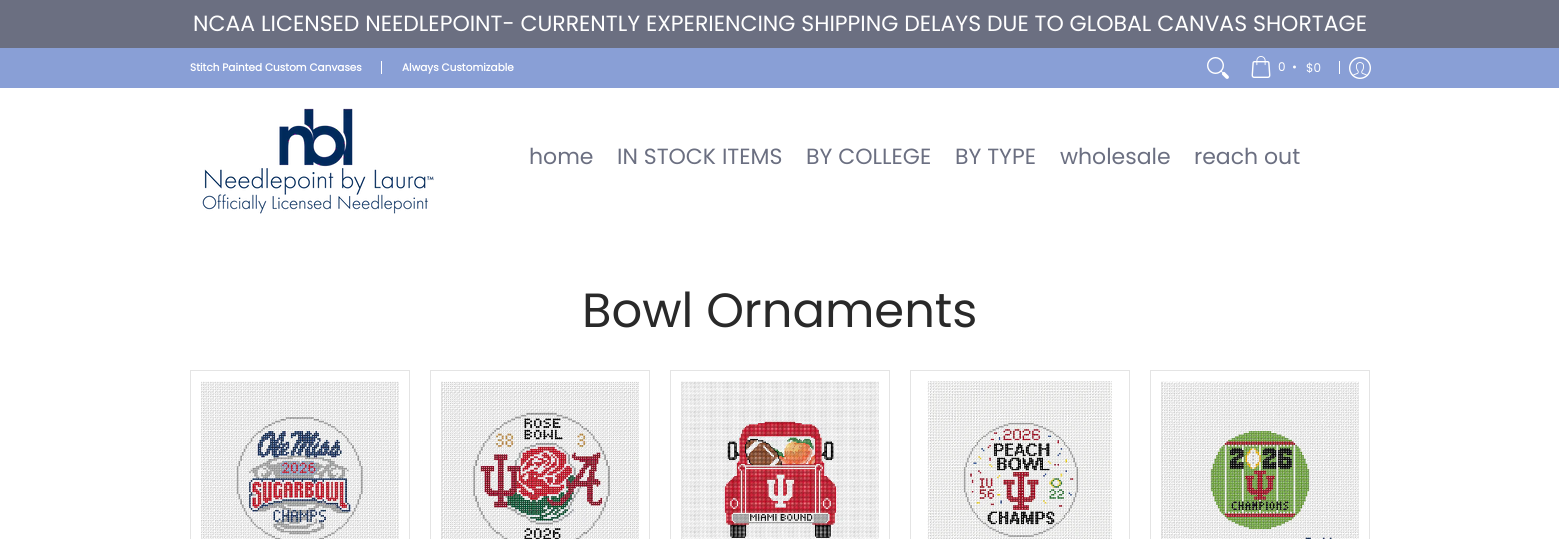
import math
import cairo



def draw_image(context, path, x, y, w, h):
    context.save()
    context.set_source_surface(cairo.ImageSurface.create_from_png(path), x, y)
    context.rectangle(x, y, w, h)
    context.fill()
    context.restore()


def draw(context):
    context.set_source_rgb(1, 1, 1)
    context.paint()
    context.set_source_rgb(107 / 255, 111 / 255, 129 / 255)
    context.rectangle(0, 0, 1559, 48)
    context.fill()
    context.set_source_rgb(137 / 255, 159 / 255, 214 / 255)
    context.rectangle(0, 48, 1559, 40)
    context.fill()
    context.set_source_rgb(1, 1, 1)
    context.rectangle(381, 61, 1, 13)
    context.fill()
    draw_image(context, "images/1.png", 1207, 57, 22, 22)
    draw_image(context, "images/2.png", 1251, 56, 20, 22)
    context.rectangle(1339, 61, 1, 13)
    context.fill()
    draw_image(context, "images/3.png", 1349, 57, 22, 22)
    draw_image(context, "images/4.png", 202, 108, 232, 106)
    context.rectangle(190.5, 370.5, 219, 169)
    context.set_source_rgb(228 / 255, 228 / 255, 228 / 255)
    context.set_line_width(1)
    context.stroke()
    draw_image(context, "images/5.png", 201, 381, 198, 158)
    context.rectangle(430.5, 370.5, 219, 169)
    context.stroke()
    draw_image(context, "images/6.png", 441, 381, 198, 158)
    context.rectangle(670.5, 370.5, 219, 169)
    context.stroke()
    draw_image(context, "images/7.png", 681, 381, 198, 158)
    context.rectangle(910.5, 370.5, 219, 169)
    context.stroke()
    draw_image(context, "images/8.png", 927, 381, 185, 158)
    context.rectangle(1150.5, 370.5, 219, 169)
    context.stroke()
    draw_image(context, "images/9.png", 1161, 381, 198, 158)
    context.select_font_face("Poppins")
    context.set_font_size(22)
    context.set_source_rgb(1, 1, 1)
    context.move_to(193, 31)
    context.show_text("NCAA LICENSED NEEDLEPOINT- CURRENTLY EXPERIENCING SHIPPING DELAYS DUE TO GLOBAL CANVAS SHORTAGE")
    context.select_font_face("Poppins", cairo.FontSlant.NORMAL, cairo.FontWeight.BOLD)
    context.set_font_size(10.5)
    context.move_to(190, 71)
    context.show_text("Stitch Painted Custom Canvases")
    context.move_to(402, 71)
    context.show_text("Always Customizable")
    context.select_font_face("Poppins")
    context.set_font_size(12)
    context.move_to(1278, 71)
    context.show_text("0")
    context.move_to(1292, 71)
    context.show_text("•")
    context.move_to(1306, 72)
    context.show_text("$0")
    context.set_font_size(22)
    context.set_source_rgb(107 / 255, 111 / 255, 129 / 255)
    context.move_to(529, 164)
    context.show_text("home")
    context.move_to(617, 164)
    context.show_text("IN STOCK ITEMS")
    context.move_to(806, 164)
    context.show_text("BY COLLEGE")
    context.move_to(955, 164)
    context.show_text("BY TYPE")
    context.move_to(1060, 164)
    context.show_text("wholesale")
    context.move_to(1194, 164)
    context.show_text("reach out")
    context.set_font_size(48)
    context.set_source_rgb(41 / 255, 41 / 255, 41 / 255)
    context.move_to(582, 327)
    context.show_text("Bowl Ornaments")


surface = cairo.ImageSurface(cairo.Format.RGB24, 1559, 539)
context = cairo.Context(surface)
options = cairo.FontOptions()
options.set_hint_metrics(cairo.HintMetrics.OFF)
options.set_hint_style(cairo.HintStyle.NONE)
context.set_font_options(options)
context.set_miter_limit(4)
draw(context)
surface.write_to_png("out.png")
